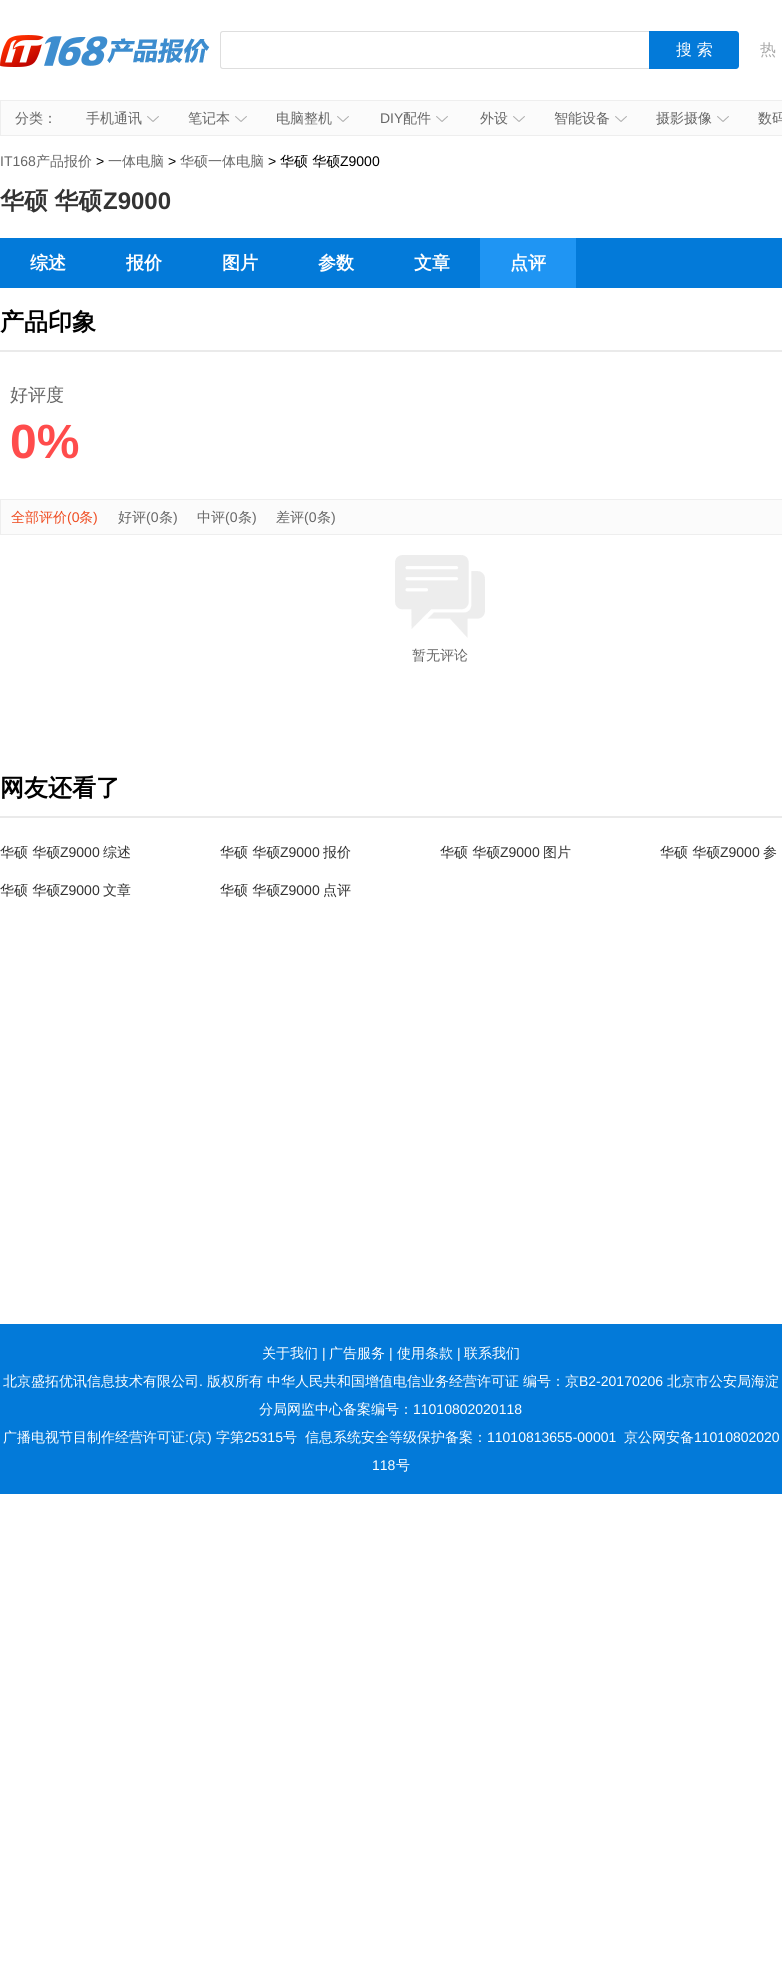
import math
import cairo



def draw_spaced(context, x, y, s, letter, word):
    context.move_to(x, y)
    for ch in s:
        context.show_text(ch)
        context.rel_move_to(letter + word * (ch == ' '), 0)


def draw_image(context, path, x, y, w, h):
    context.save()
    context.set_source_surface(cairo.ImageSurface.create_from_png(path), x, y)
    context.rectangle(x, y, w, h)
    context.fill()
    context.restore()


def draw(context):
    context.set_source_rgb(1, 1, 1)
    context.paint()
    draw_image(context, "images/1.png", 0, 35, 210, 32)
    context.set_source_rgb(222 / 255, 222 / 255, 222 / 255)
    context.set_fill_rule(cairo.FillRule.EVEN_ODD)
    context.new_path()
    context.move_to(223, 31)
    context.line_to(649, 31)
    context.line_to(649, 69)
    context.line_to(223, 69)
    context.curve_to(221, 69, 220, 68, 220, 66)
    context.line_to(220, 34)
    context.curve_to(220, 32, 221, 31, 223, 31)
    context.close_path()
    context.move_to(223, 32)
    context.line_to(649, 32)
    context.line_to(649, 68)
    context.line_to(223, 68)
    context.curve_to(222, 68, 221, 67, 221, 66)
    context.line_to(221, 34)
    context.curve_to(221, 33, 222, 32, 223, 32)
    context.close_path()
    context.fill()
    context.set_source_rgb(3 / 255, 122 / 255, 217 / 255)
    context.new_path()
    context.move_to(649, 31)
    context.line_to(736, 31)
    context.curve_to(737.5, 31, 739, 32.5, 739, 34)
    context.line_to(739, 66)
    context.curve_to(739, 67.5, 737.5, 69, 736, 69)
    context.line_to(649, 69)
    context.close_path()
    context.fill()
    context.set_source_rgb(251 / 255, 251 / 255, 251 / 255)
    context.rectangle(0.5, 100.5, 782, 35)
    context.fill_preserve()
    context.set_source_rgb(238 / 255, 238 / 255, 238 / 255)
    context.set_line_width(1)
    context.stroke()
    draw_image(context, "images/2.png", 147, 116, 12, 6)
    draw_image(context, "images/2.png", 235, 116, 12, 6)
    draw_image(context, "images/2.png", 337, 116, 12, 6)
    draw_image(context, "images/2.png", 436, 116, 12, 6)
    draw_image(context, "images/2.png", 513, 116, 12, 6)
    draw_image(context, "images/2.png", 615, 116, 12, 6)
    draw_image(context, "images/2.png", 717, 116, 12, 6)
    context.set_source_rgb(3 / 255, 122 / 255, 217 / 255)
    context.rectangle(0, 238, 782, 50)
    context.fill()
    context.set_source_rgb(31 / 255, 149 / 255, 243 / 255)
    context.rectangle(480, 238, 96, 50)
    context.fill()
    context.set_source_rgb(234 / 255, 234 / 255, 234 / 255)
    context.rectangle(0, 350, 782, 2)
    context.fill()
    context.set_source_rgb(251 / 255, 251 / 255, 251 / 255)
    context.rectangle(0.5, 499.5, 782, 35)
    context.fill_preserve()
    context.set_source_rgb(238 / 255, 238 / 255, 238 / 255)
    context.stroke()
    draw_image(context, "images/3.png", 395, 555, 90, 83)
    context.set_source_rgb(234 / 255, 234 / 255, 234 / 255)
    context.rectangle(0, 816, 782, 2)
    context.fill()
    context.set_source_rgb(3 / 255, 122 / 255, 217 / 255)
    context.rectangle(0, 1324, 782, 170)
    context.fill()
    context.select_font_face("WenQuanYi Zen Hei Medium")
    context.set_font_size(16)
    context.set_source_rgb(1, 1, 1)
    context.move_to(676, 55)
    context.show_text("搜 索")
    context.set_source_rgb(169 / 255, 169 / 255, 169 / 255)
    context.move_to(760, 55)
    context.show_text("热")
    context.set_font_size(14)
    context.set_source_rgb(102 / 255, 102 / 255, 102 / 255)
    context.move_to(15, 123)
    context.show_text("分类：")
    context.move_to(86, 123)
    context.show_text("手机通讯")
    context.move_to(188, 123)
    context.show_text("笔记本")
    context.move_to(276, 123)
    context.show_text("电脑整机")
    context.select_font_face("Liberation Sans")
    context.move_to(380, 123)
    context.show_text("DIY")
    context.select_font_face("WenQuanYi Zen Hei Medium")
    context.move_to(403, 123)
    context.show_text("配件")
    context.move_to(480, 123)
    context.show_text("外设")
    context.move_to(554, 123)
    context.show_text("智能设备")
    context.move_to(656, 123)
    context.show_text("摄影摄像")
    context.move_to(758, 123)
    context.show_text("数码")
    context.select_font_face("Liberation Sans")
    context.move_to(0, 166)
    context.show_text("IT168")
    context.select_font_face("WenQuanYi Zen Hei Medium")
    context.move_to(36, 166)
    context.show_text("产品报价")
    context.select_font_face("Liberation Sans")
    context.set_source_rgb(0, 0, 0)
    context.move_to(96, 166)
    context.show_text(">")
    context.select_font_face("WenQuanYi Zen Hei Medium")
    context.set_source_rgb(102 / 255, 102 / 255, 102 / 255)
    context.move_to(108, 166)
    context.show_text("一体电脑")
    context.select_font_face("Liberation Sans")
    context.set_source_rgb(0, 0, 0)
    context.move_to(168, 166)
    context.show_text(">")
    context.select_font_face("WenQuanYi Zen Hei Medium")
    context.set_source_rgb(102 / 255, 102 / 255, 102 / 255)
    context.move_to(180, 166)
    context.show_text("华硕一体电脑")
    context.select_font_face("Liberation Sans")
    context.set_source_rgb(0, 0, 0)
    context.move_to(268, 166)
    context.show_text(">")
    context.select_font_face("WenQuanYi Zen Hei Medium")
    context.move_to(280, 166)
    context.show_text("华硕 华硕")
    context.select_font_face("Liberation Sans")
    context.move_to(340, 166)
    context.show_text("Z9000")
    context.select_font_face("WenQuanYi Zen Hei", cairo.FontSlant.NORMAL, cairo.FontWeight.BOLD)
    context.set_font_size(24)
    context.set_source_rgb(51 / 255, 51 / 255, 51 / 255)
    draw_spaced(context, 0, 209, "华硕 华硕", 0, -1)
    context.select_font_face("Liberation Sans", cairo.FontSlant.NORMAL, cairo.FontWeight.BOLD)
    context.move_to(103, 209)
    context.show_text("Z9000")
    context.select_font_face("WenQuanYi Zen Hei", cairo.FontSlant.NORMAL, cairo.FontWeight.BOLD)
    context.set_font_size(18)
    context.set_source_rgb(1, 1, 1)
    context.move_to(30, 269)
    context.show_text("综述")
    context.move_to(126, 269)
    context.show_text("报价")
    context.move_to(222, 269)
    context.show_text("图片")
    context.move_to(318, 269)
    context.show_text("参数")
    context.move_to(414, 269)
    context.show_text("文章")
    context.move_to(510, 269)
    context.show_text("点评")
    context.set_font_size(24)
    context.set_source_rgb(0, 0, 0)
    context.move_to(0, 330)
    context.show_text("产品印象")
    context.select_font_face("WenQuanYi Zen Hei Medium")
    context.set_font_size(18)
    context.set_source_rgb(102 / 255, 102 / 255, 102 / 255)
    context.move_to(10, 401)
    context.show_text("好评度")
    context.select_font_face("Liberation Sans", cairo.FontSlant.NORMAL, cairo.FontWeight.BOLD)
    context.set_font_size(48)
    context.set_source_rgb(1, 76 / 255, 76 / 255)
    context.move_to(10, 458)
    context.show_text("0%")
    context.select_font_face("WenQuanYi Zen Hei Medium")
    context.set_font_size(14)
    context.set_source_rgb(239 / 255, 76 / 255, 33 / 255)
    context.move_to(11, 522)
    context.show_text("全部评价")
    context.select_font_face("Liberation Sans")
    context.move_to(67, 522)
    context.show_text("(0")
    context.select_font_face("WenQuanYi Zen Hei Medium")
    context.move_to(79, 522)
    context.show_text("条")
    context.select_font_face("Liberation Sans")
    context.move_to(93, 522)
    context.show_text(")")
    context.select_font_face("WenQuanYi Zen Hei Medium")
    context.set_source_rgb(102 / 255, 102 / 255, 102 / 255)
    context.move_to(118, 522)
    context.show_text("好评")
    context.select_font_face("Liberation Sans")
    context.move_to(146, 522)
    context.show_text("(0")
    context.select_font_face("WenQuanYi Zen Hei Medium")
    context.move_to(159, 522)
    context.show_text("条")
    context.select_font_face("Liberation Sans")
    context.move_to(173, 522)
    context.show_text(")")
    context.select_font_face("WenQuanYi Zen Hei Medium")
    context.move_to(197, 522)
    context.show_text("中评")
    context.select_font_face("Liberation Sans")
    context.move_to(225, 522)
    context.show_text("(0")
    context.select_font_face("WenQuanYi Zen Hei Medium")
    context.move_to(238, 522)
    context.show_text("条")
    context.select_font_face("Liberation Sans")
    context.move_to(252, 522)
    context.show_text(")")
    context.select_font_face("WenQuanYi Zen Hei Medium")
    context.move_to(276, 522)
    context.show_text("差评")
    context.select_font_face("Liberation Sans")
    context.move_to(304, 522)
    context.show_text("(0")
    context.select_font_face("WenQuanYi Zen Hei Medium")
    context.move_to(317, 522)
    context.show_text("条")
    context.select_font_face("Liberation Sans")
    context.move_to(331, 522)
    context.show_text(")")
    context.select_font_face("WenQuanYi Zen Hei Medium")
    context.move_to(412, 660)
    context.show_text("暂无评论")
    context.select_font_face("WenQuanYi Zen Hei", cairo.FontSlant.NORMAL, cairo.FontWeight.BOLD)
    context.set_font_size(24)
    context.set_source_rgb(0, 0, 0)
    context.move_to(0, 796)
    context.show_text("网友还看了")
    context.select_font_face("WenQuanYi Zen Hei Medium")
    context.set_font_size(14)
    context.set_source_rgb(51 / 255, 51 / 255, 51 / 255)
    context.move_to(0, 857)
    context.show_text("华硕 华硕")
    context.select_font_face("Liberation Sans")
    context.move_to(60, 857)
    context.show_text("Z9000")
    context.select_font_face("WenQuanYi Zen Hei Medium")
    context.move_to(103, 857)
    context.show_text("综述")
    context.move_to(220, 857)
    context.show_text("华硕 华硕")
    context.select_font_face("Liberation Sans")
    context.move_to(280, 857)
    context.show_text("Z9000")
    context.select_font_face("WenQuanYi Zen Hei Medium")
    context.move_to(323, 857)
    context.show_text("报价")
    context.move_to(440, 857)
    context.show_text("华硕 华硕")
    context.select_font_face("Liberation Sans")
    context.move_to(500, 857)
    context.show_text("Z9000")
    context.select_font_face("WenQuanYi Zen Hei Medium")
    context.move_to(543, 857)
    context.show_text("图片")
    context.move_to(660, 857)
    context.show_text("华硕 华硕")
    context.select_font_face("Liberation Sans")
    context.move_to(720, 857)
    context.show_text("Z9000")
    context.select_font_face("WenQuanYi Zen Hei Medium")
    context.move_to(763, 857)
    context.show_text("参")
    context.move_to(0, 895)
    context.show_text("华硕 华硕")
    context.select_font_face("Liberation Sans")
    context.move_to(60, 895)
    context.show_text("Z9000")
    context.select_font_face("WenQuanYi Zen Hei Medium")
    context.move_to(103, 895)
    context.show_text("文章")
    context.move_to(220, 895)
    context.show_text("华硕 华硕")
    context.select_font_face("Liberation Sans")
    context.move_to(280, 895)
    context.show_text("Z9000")
    context.select_font_face("WenQuanYi Zen Hei Medium")
    context.move_to(323, 895)
    context.show_text("点评")
    context.set_source_rgb(1, 1, 1)
    context.move_to(262, 1358)
    context.show_text("关于我们")
    context.select_font_face("Liberation Sans")
    context.move_to(322, 1358)
    context.show_text("|")
    context.select_font_face("WenQuanYi Zen Hei Medium")
    context.move_to(329, 1358)
    context.show_text("广告服务")
    context.select_font_face("Liberation Sans")
    context.move_to(389, 1358)
    context.show_text("|")
    context.select_font_face("WenQuanYi Zen Hei Medium")
    context.move_to(397, 1358)
    context.show_text("使用条款")
    context.select_font_face("Liberation Sans")
    context.move_to(457, 1358)
    context.show_text("|")
    context.select_font_face("WenQuanYi Zen Hei Medium")
    context.move_to(464, 1358)
    context.show_text("联系我们")
    context.move_to(3, 1386)
    context.show_text("北京盛拓优讯信息技术有限公司")
    context.select_font_face("Liberation Sans")
    context.move_to(199, 1386)
    context.show_text(".")
    context.select_font_face("WenQuanYi Zen Hei Medium")
    context.move_to(207, 1386)
    context.show_text("版权所有")
    context.move_to(267, 1386)
    context.show_text("中华人民共和国增值电信业务经营许可证")
    context.move_to(523, 1386)
    context.show_text("编号：京")
    context.select_font_face("Liberation Sans")
    context.move_to(579, 1386)
    context.show_text("B2-20170206")
    context.select_font_face("WenQuanYi Zen Hei Medium")
    context.move_to(667, 1386)
    context.show_text("北京市公安局海淀")
    context.move_to(259, 1414)
    context.show_text("分局网监中心备案编号：")
    context.select_font_face("Liberation Sans")
    context.move_to(413, 1414)
    context.show_text("11010802020118")
    context.select_font_face("WenQuanYi Zen Hei Medium")
    context.move_to(3, 1442)
    context.show_text("广播电视节目制作经营许可证")
    context.select_font_face("Liberation Sans")
    context.move_to(185, 1442)
    context.show_text(":(")
    context.select_font_face("WenQuanYi Zen Hei Medium")
    context.move_to(193, 1442)
    context.show_text("京")
    context.select_font_face("Liberation Sans")
    context.move_to(207, 1442)
    context.show_text(")")
    context.select_font_face("WenQuanYi Zen Hei Medium")
    context.move_to(216, 1442)
    context.show_text("字第")
    context.select_font_face("Liberation Sans")
    context.move_to(244, 1442)
    context.show_text("25315")
    context.select_font_face("WenQuanYi Zen Hei Medium")
    context.move_to(283, 1442)
    context.show_text("号")
    context.move_to(305, 1442)
    context.show_text("信息系统安全等级保护备案：")
    context.select_font_face("Liberation Sans")
    context.move_to(487, 1442)
    context.show_text("11010813655-00001")
    context.select_font_face("WenQuanYi Zen Hei Medium")
    context.move_to(624, 1442)
    context.show_text("京公网安备")
    context.select_font_face("Liberation Sans")
    context.move_to(694, 1442)
    context.show_text("11010802020")
    context.move_to(372, 1470)
    context.show_text("118")
    context.select_font_face("WenQuanYi Zen Hei Medium")
    context.move_to(396, 1470)
    context.show_text("号")


surface = cairo.ImageSurface(cairo.Format.RGB24, 782, 1975)
context = cairo.Context(surface)
options = cairo.FontOptions()
options.set_hint_metrics(cairo.HintMetrics.OFF)
options.set_hint_style(cairo.HintStyle.NONE)
context.set_font_options(options)
context.set_miter_limit(4)
draw(context)
surface.write_to_png("out.png")
